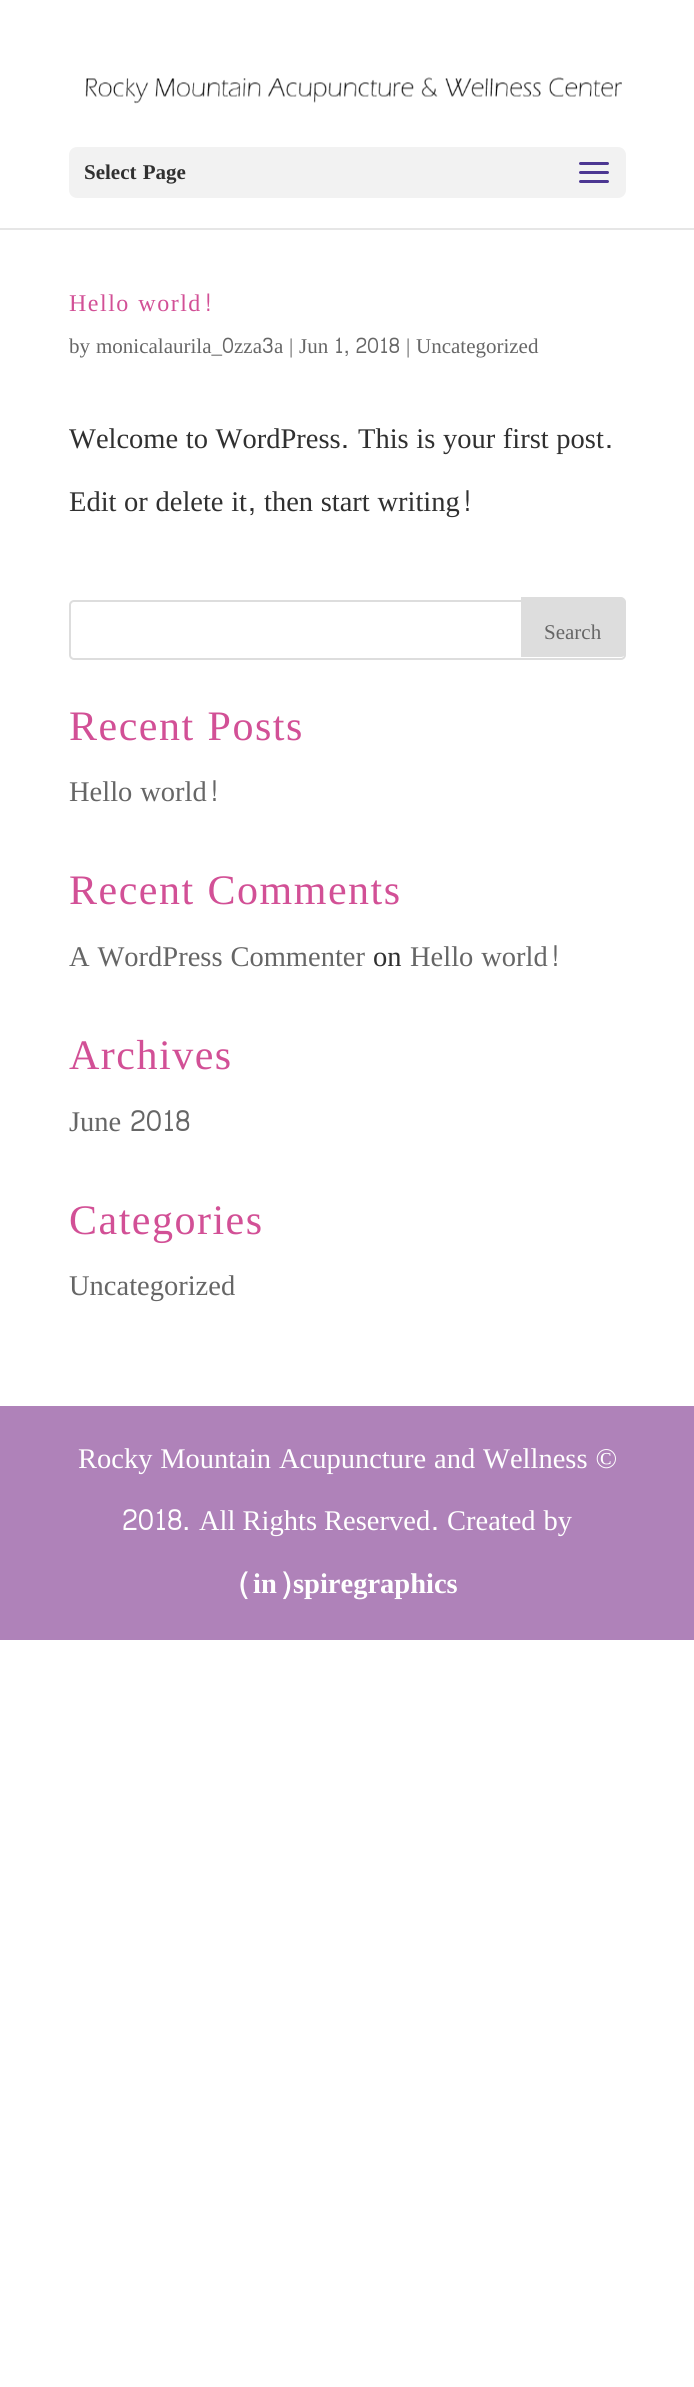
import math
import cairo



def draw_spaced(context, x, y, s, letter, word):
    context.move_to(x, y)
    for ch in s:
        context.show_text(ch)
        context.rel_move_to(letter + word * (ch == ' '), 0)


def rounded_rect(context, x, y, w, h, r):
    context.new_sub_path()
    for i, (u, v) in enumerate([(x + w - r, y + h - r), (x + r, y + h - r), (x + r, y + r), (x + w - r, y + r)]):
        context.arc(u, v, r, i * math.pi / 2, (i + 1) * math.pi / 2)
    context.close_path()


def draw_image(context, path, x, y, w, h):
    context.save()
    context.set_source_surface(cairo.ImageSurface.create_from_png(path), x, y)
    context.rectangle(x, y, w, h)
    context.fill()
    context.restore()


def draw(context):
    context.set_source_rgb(1, 1, 1)
    context.paint()
    context.set_source_rgb(230 / 255, 230 / 255, 230 / 255)
    context.new_path()
    context.move_to(0, 228)
    context.line_to(0, 230)
    context.line_to(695, 230)
    context.line_to(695, 2)
    context.line_to(694, 2)
    context.line_to(694, 228)
    context.close_path()
    context.fill()
    draw_image(context, "images/1.png", 85, 77, 537, 27)
    context.set_source_rgb(242 / 255, 242 / 255, 242 / 255)
    rounded_rect(context, 69, 147, 557, 51, 8)
    context.fill()
    draw_image(context, "images/2.png", 579, 162, 30, 21)
    rounded_rect(context, 70, 601, 555, 58, 4)
    context.set_source_rgb(221 / 255, 221 / 255, 221 / 255)
    context.stroke()
    context.new_path()
    context.move_to(522, 598)
    context.line_to(621, 598)
    context.curve_to(623, 598, 625, 600, 625, 602)
    context.line_to(625, 652)
    context.curve_to(625, 654, 623, 656, 621, 656)
    context.line_to(522, 656)
    context.close_path()
    context.fill_preserve()
    context.stroke()
    context.set_source_rgb(175 / 255, 130 / 255, 185 / 255)
    context.rectangle(0, 1406, 694, 234)
    context.fill()
    context.select_font_face("Liberation Serif", cairo.FontSlant.NORMAL, cairo.FontWeight.BOLD)
    context.set_font_size(21)
    context.set_source_rgb(48 / 255, 48 / 255, 48 / 255)
    draw_spaced(context, 84, 179, "Select Page", 0, 1)
    context.select_font_face("Liberation Serif")
    context.set_font_size(24)
    context.set_source_rgb(210 / 255, 80 / 255, 150 / 255)
    draw_spaced(context, 69, 311, "Hello world", 1.5, 1)
    context.select_font_face("Chenla")
    draw_spaced(context, 202, 311, "!", 1.5, 0)
    context.select_font_face("Liberation Serif")
    context.set_font_size(21)
    context.set_source_rgb(102 / 255, 102 / 255, 102 / 255)
    context.move_to(69, 353)
    context.show_text("by")
    context.move_to(96, 353)
    context.show_text("monicalaurila_")
    context.select_font_face("Chenla")
    context.move_to(222, 353)
    context.show_text("0")
    context.select_font_face("Liberation Serif")
    context.move_to(234, 353)
    context.show_text("zza")
    context.select_font_face("Chenla")
    context.move_to(262, 353)
    context.show_text("3")
    context.select_font_face("Liberation Serif")
    context.move_to(274, 353)
    context.show_text("a")
    context.move_to(289, 353)
    context.show_text("|")
    context.move_to(299, 353)
    context.show_text("Jun")
    context.select_font_face("Chenla")
    context.move_to(334, 353)
    context.show_text("1, 2018")
    context.select_font_face("Liberation Serif")
    context.move_to(406, 353)
    context.show_text("|")
    context.move_to(416, 353)
    context.show_text("Uncategorized")
    context.set_font_size(28.5)
    context.set_source_rgb(48 / 255, 48 / 255, 48 / 255)
    draw_spaced(context, 69, 448, "Welcome to WordPress", 0, 0.5)
    context.select_font_face("Chenla")
    context.move_to(341, 448)
    context.show_text(".")
    context.select_font_face("Liberation Serif")
    draw_spaced(context, 358, 448, "This is your first post", 0, 0.5)
    context.select_font_face("Chenla")
    context.move_to(605, 448)
    context.show_text(".")
    context.select_font_face("Liberation Serif")
    draw_spaced(context, 69, 511, "Edit or delete it", 0, 0.5)
    context.select_font_face("Chenla")
    context.move_to(248, 511)
    context.show_text(",")
    context.select_font_face("Liberation Serif")
    draw_spaced(context, 264, 511, "then start writing", 0, 0.5)
    context.select_font_face("Chenla")
    context.move_to(460, 511)
    context.show_text("!")
    context.select_font_face("Liberation Serif")
    context.set_font_size(21)
    context.set_source_rgb(102 / 255, 102 / 255, 102 / 255)
    context.move_to(544, 639)
    context.show_text("Search")
    context.set_font_size(42)
    context.set_source_rgb(210 / 255, 80 / 255, 150 / 255)
    draw_spaced(context, 69, 740, "Recent Posts", 1.5, 1)
    context.set_font_size(28.5)
    context.set_source_rgb(102 / 255, 102 / 255, 102 / 255)
    draw_spaced(context, 69, 801, "Hello world", 0, 0.75)
    context.select_font_face("Chenla")
    context.move_to(207, 801)
    context.show_text("!")
    context.select_font_face("Liberation Serif")
    context.set_font_size(42)
    context.set_source_rgb(210 / 255, 80 / 255, 150 / 255)
    draw_spaced(context, 69, 904, "Recent Comments", 1.5, 1)
    context.set_font_size(28.5)
    context.set_source_rgb(102 / 255, 102 / 255, 102 / 255)
    draw_spaced(context, 69, 966, "A WordPress Commenter", 0, 0.75)
    context.set_source_rgb(48 / 255, 48 / 255, 48 / 255)
    context.move_to(373, 966)
    context.show_text("on")
    context.set_source_rgb(102 / 255, 102 / 255, 102 / 255)
    draw_spaced(context, 410, 966, "Hello world", 0, 0.75)
    context.select_font_face("Chenla")
    context.move_to(548, 966)
    context.show_text("!")
    context.select_font_face("Liberation Serif")
    context.set_font_size(42)
    context.set_source_rgb(210 / 255, 80 / 255, 150 / 255)
    draw_spaced(context, 69, 1069, "Archives", 1.5, 0)
    context.set_font_size(28.5)
    context.set_source_rgb(102 / 255, 102 / 255, 102 / 255)
    context.move_to(69, 1131)
    context.show_text("June")
    context.select_font_face("Chenla")
    context.move_to(130, 1131)
    context.show_text("2018")
    context.select_font_face("Liberation Serif")
    context.set_font_size(42)
    context.set_source_rgb(210 / 255, 80 / 255, 150 / 255)
    draw_spaced(context, 69, 1234, "Categories", 1.5, 0)
    context.set_font_size(28.5)
    context.set_source_rgb(102 / 255, 102 / 255, 102 / 255)
    context.move_to(69, 1295)
    context.show_text("Uncategorized")
    context.set_source_rgb(1, 1, 1)
    draw_spaced(context, 78, 1468, "Rocky Mountain Acupuncture and Wellness ©", 0, 0.75)
    context.select_font_face("Chenla")
    context.move_to(122, 1530)
    context.show_text("2018.")
    context.select_font_face("Liberation Serif")
    context.move_to(199, 1530)
    context.show_text("All Rights Reserved")
    context.select_font_face("Chenla")
    context.move_to(431, 1530)
    context.show_text(".")
    context.select_font_face("Liberation Serif")
    draw_spaced(context, 447, 1530, "Created by", 0, 0.75)
    context.select_font_face("Chenla", cairo.FontSlant.NORMAL, cairo.FontWeight.BOLD)
    context.move_to(237, 1593)
    context.show_text("(")
    context.select_font_face("Liberation Serif", cairo.FontSlant.NORMAL, cairo.FontWeight.BOLD)
    context.move_to(253, 1593)
    context.show_text("in")
    context.select_font_face("Chenla", cairo.FontSlant.NORMAL, cairo.FontWeight.BOLD)
    context.move_to(277, 1593)
    context.show_text(")")
    context.select_font_face("Liberation Serif", cairo.FontSlant.NORMAL, cairo.FontWeight.BOLD)
    context.move_to(293, 1593)
    context.show_text("spiregraphics")


surface = cairo.ImageSurface(cairo.Format.RGB24, 694, 2387)
context = cairo.Context(surface)
options = cairo.FontOptions()
options.set_hint_metrics(cairo.HintMetrics.OFF)
options.set_hint_style(cairo.HintStyle.NONE)
context.set_font_options(options)
context.set_miter_limit(4)
draw(context)
surface.write_to_png("out.png")
